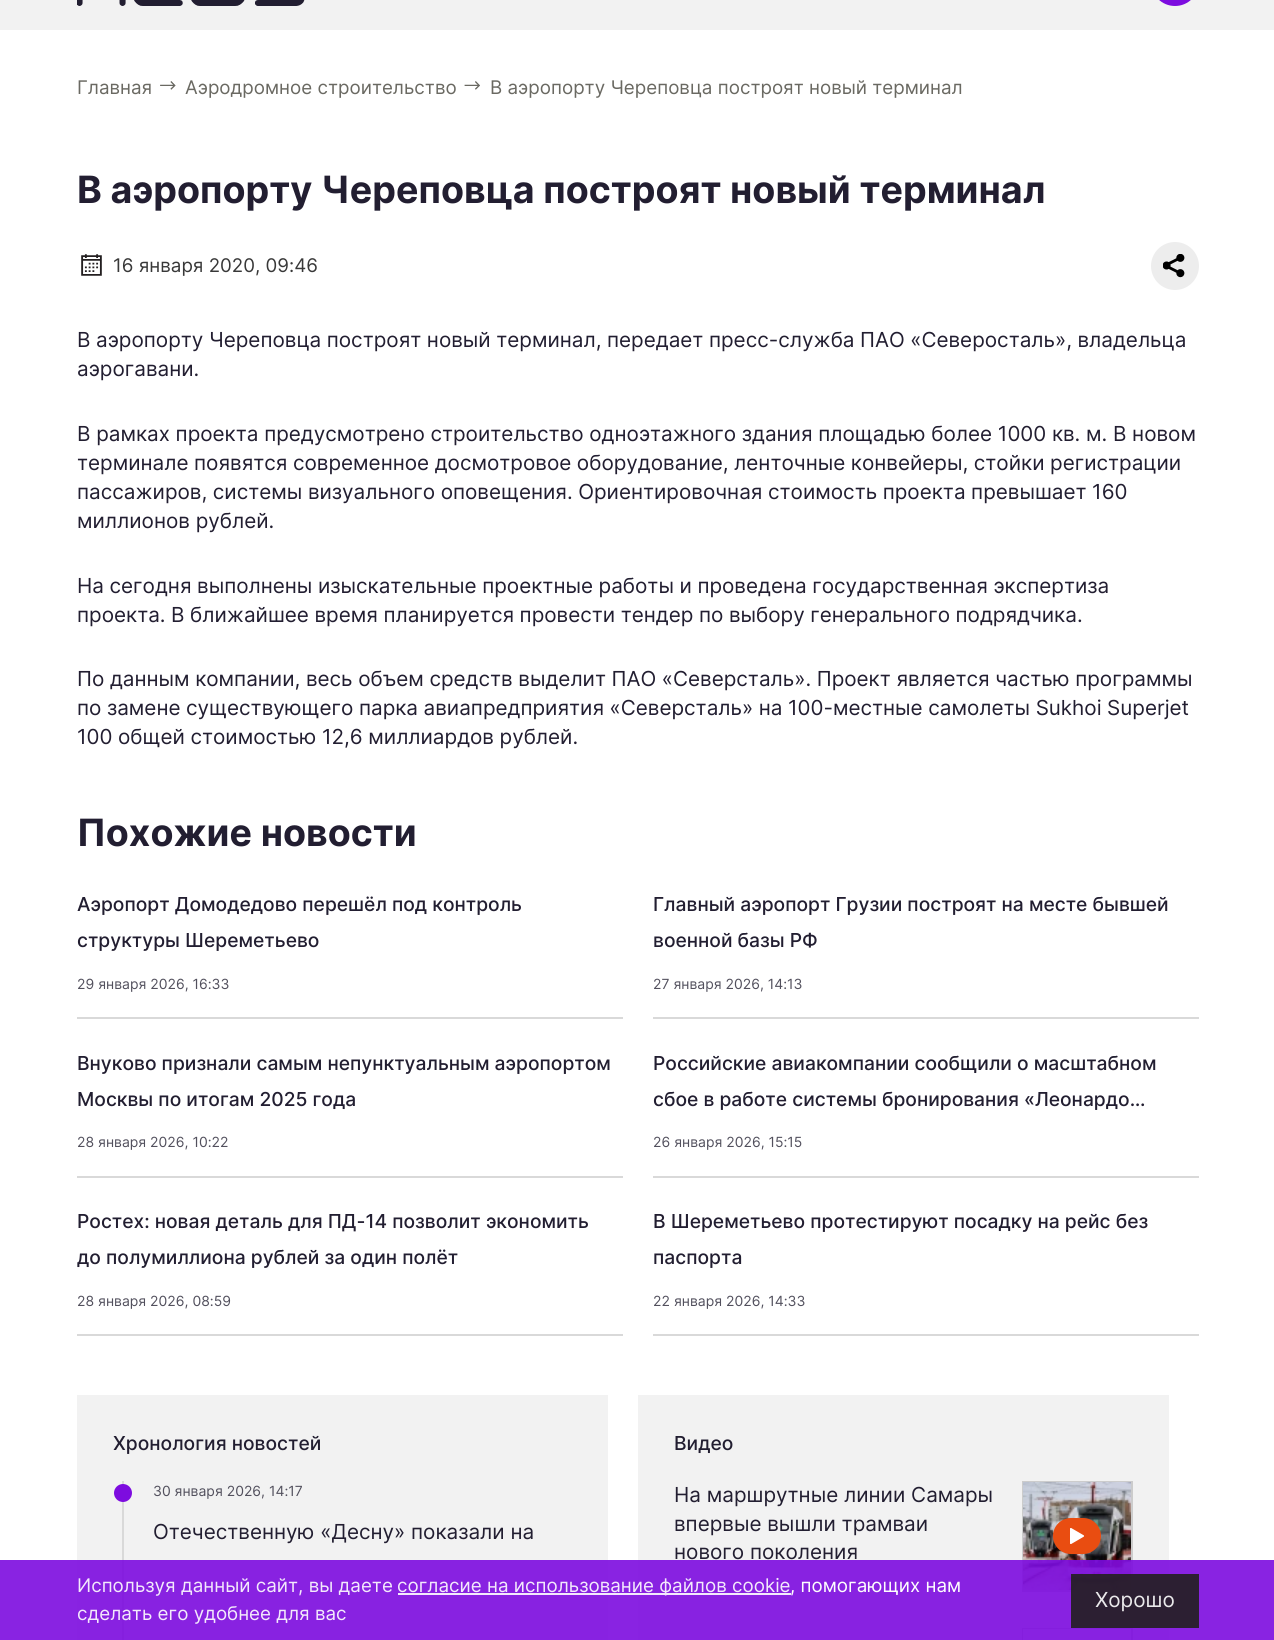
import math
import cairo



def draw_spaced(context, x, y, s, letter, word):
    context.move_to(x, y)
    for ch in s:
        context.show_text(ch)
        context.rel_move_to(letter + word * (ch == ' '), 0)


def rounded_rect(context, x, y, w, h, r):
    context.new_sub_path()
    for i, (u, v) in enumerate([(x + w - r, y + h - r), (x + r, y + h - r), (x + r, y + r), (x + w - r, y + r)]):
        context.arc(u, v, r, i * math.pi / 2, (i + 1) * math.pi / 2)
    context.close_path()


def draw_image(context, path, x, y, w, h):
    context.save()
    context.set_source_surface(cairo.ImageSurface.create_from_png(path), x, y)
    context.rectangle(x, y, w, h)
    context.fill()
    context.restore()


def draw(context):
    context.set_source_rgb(1, 1, 1)
    context.paint()
    context.set_source_rgb(242 / 255, 242 / 255, 242 / 255)
    context.rectangle(0, 0, 1274, 30)
    context.fill()
    draw_image(context, "images/1.png", 77, 0, 228, 6)
    context.set_source_rgb(125 / 255, 12 / 255, 223 / 255)
    rounded_rect(context, 1151, -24, 48, 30, 24)
    context.fill()
    draw_image(context, "images/2.png", 160, 81, 16, 9)
    draw_image(context, "images/3.png", 464, 81, 16, 9)
    draw_image(context, "images/4.png", 81, 254, 21, 22)
    context.set_source_rgb(237 / 255, 237 / 255, 237 / 255)
    context.arc(1175, 266, 24, 0, 2 * math.pi)
    context.fill()
    draw_image(context, "images/5.png", 1163, 254, 22, 24)
    context.set_source_rgb(217 / 255, 217 / 255, 217 / 255)
    context.rectangle(77, 1017, 546, 2)
    context.fill()
    context.rectangle(77, 1176, 546, 2)
    context.fill()
    context.rectangle(77, 1334, 546, 2)
    context.fill()
    context.rectangle(653, 1017, 546, 2)
    context.fill()
    context.rectangle(653, 1176, 546, 2)
    context.fill()
    context.rectangle(653, 1334, 546, 2)
    context.fill()
    context.set_source_rgb(242 / 255, 242 / 255, 242 / 255)
    context.rectangle(77, 1395, 531, 245)
    context.fill()
    context.set_source_rgb(217 / 255, 217 / 255, 217 / 255)
    context.rectangle(122, 1481, 2, 159)
    context.fill()
    context.set_source_rgb(125 / 255, 12 / 255, 223 / 255)
    context.arc(123, 1493, 9, 0, 2 * math.pi)
    context.fill()
    context.set_source_rgb(242 / 255, 242 / 255, 242 / 255)
    context.rectangle(638, 1395, 531, 245)
    context.fill()
    context.rectangle(1023, 1482, 109, 109)
    context.set_source_rgb(204 / 255, 204 / 255, 204 / 255)
    context.stroke()
    draw_image(context, "images/6.png", 1023, 1482, 108, 108)
    context.set_source_rgb(233 / 255, 77 / 255, 17 / 255)
    rounded_rect(context, 1053, 1518, 48, 36, 18)
    context.fill()
    draw_image(context, "images/7.png", 1070, 1528, 14, 16)
    context.rectangle(1023, 1629, 109, 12)
    context.set_source_rgb(204 / 255, 204 / 255, 204 / 255)
    context.stroke()
    context.set_source_rgb(241 / 255, 241 / 255, 241 / 255)
    context.rectangle(1023, 1629, 108, 11)
    context.fill()
    context.set_source_rgba(125 / 255, 12 / 255, 223 / 255, 0.9)
    context.rectangle(0, 1560, 1274, 80)
    context.fill()
    context.set_source_rgb(243 / 255, 233 / 255, 252 / 255)
    context.rectangle(398, 1593, 393, 2)
    context.fill()
    context.set_source_rgba(35 / 255, 31 / 255, 32 / 255, 0.9)
    context.rectangle(1071, 1574, 128, 54)
    context.fill()
    context.select_font_face("Inter")
    context.set_font_size(18.8)
    context.set_source_rgb(106 / 255, 105 / 255, 98 / 255)
    context.move_to(77, 94)
    context.show_text("Главная")
    context.move_to(185, 94)
    context.show_text("Аэродромное строительство")
    context.move_to(490, 94)
    context.show_text("В аэропорту Череповца построят новый терминал")
    context.select_font_face("Inter", cairo.FontSlant.NORMAL, cairo.FontWeight.BOLD)
    context.set_font_size(37.6)
    context.set_source_rgb(34 / 255, 30 / 255, 49 / 255)
    context.move_to(77, 203)
    context.show_text("В аэропорту Череповца построят новый терминал")
    context.select_font_face("Inter")
    context.set_font_size(18.8)
    context.set_source_rgb(56 / 255, 56 / 255, 56 / 255)
    context.move_to(113, 272)
    context.show_text("16 января 2020, 09:46")
    context.set_font_size(20.68)
    context.set_source_rgb(34 / 255, 30 / 255, 49 / 255)
    draw_spaced(context, 77, 347, "В аэропорту Череповца построят новый терминал, передает пресс-служба ПАО «Северосталь», владельца", 0, -0.25)
    context.move_to(77, 376)
    context.show_text("аэрогавани.")
    draw_spaced(context, 77, 441, "В рамках проекта предусмотрено строительство одноэтажного здания площадью более 1000 кв. м. В новом", 0, -0.1)
    draw_spaced(context, 77, 470, "терминале появятся современное досмотровое оборудование, ленточные конвейеры, стойки регистрации", 0, -0.25)
    draw_spaced(context, 77, 499, "пассажиров, системы визуального оповещения. Ориентировочная стоимость проекта превышает 160", 0, -0.25)
    context.move_to(77, 528)
    context.show_text("миллионов рублей.")
    draw_spaced(context, 77, 593, "На сегодня выполнены изыскательные проектные работы и проведена государственная экспертиза", 0, -0.25)
    draw_spaced(context, 77, 622, "проекта. В ближайшее время планируется провести тендер по выбору генерального подрядчика.", 0, -0.25)
    draw_spaced(context, 77, 686, "По данным компании, весь объем средств выделит ПАО «Северсталь». Проект является частью программы", 0, -0.2)
    draw_spaced(context, 77, 715, "по замене существующего парка авиапредприятия «Северсталь» на 100-местные самолеты Sukhoi Superjet", 0, -0.25)
    draw_spaced(context, 77, 744, "100 общей стоимостью 12,6 миллиардов рублей.", 0, -0.25)
    context.select_font_face("Inter", cairo.FontSlant.NORMAL, cairo.FontWeight.BOLD)
    context.set_font_size(37.6)
    context.move_to(77, 846)
    context.show_text("Похожие новости")
    context.select_font_face("Inter Medium")
    context.set_font_size(19.25)
    context.move_to(77, 911)
    context.show_text("Аэропорт Домодедово перешёл под контроль")
    context.move_to(77, 947)
    context.show_text("структуры Шереметьево")
    context.select_font_face("Inter")
    context.set_font_size(14)
    context.set_source_rgb(82 / 255, 80 / 255, 93 / 255)
    context.move_to(77, 989)
    context.show_text("29 января 2026, 16:33")
    context.select_font_face("Inter Medium")
    context.set_font_size(19.25)
    context.set_source_rgb(34 / 255, 30 / 255, 49 / 255)
    context.move_to(77, 1070)
    context.show_text("Внуково признали самым непунктуальным аэропортом")
    context.move_to(77, 1106)
    context.show_text("Москвы по итогам 2025 года")
    context.select_font_face("Inter")
    context.set_font_size(14)
    context.set_source_rgb(82 / 255, 80 / 255, 93 / 255)
    context.move_to(77, 1147)
    context.show_text("28 января 2026, 10:22")
    context.select_font_face("Inter Medium")
    context.set_font_size(19.25)
    context.set_source_rgb(34 / 255, 30 / 255, 49 / 255)
    context.move_to(77, 1228)
    context.show_text("Ростех: новая деталь для ПД-14 позволит экономить")
    context.move_to(77, 1264)
    context.show_text("до полумиллиона рублей за один полёт")
    context.select_font_face("Inter")
    context.set_font_size(14)
    context.set_source_rgb(82 / 255, 80 / 255, 93 / 255)
    context.move_to(77, 1306)
    context.show_text("28 января 2026, 08:59")
    context.select_font_face("Inter Medium")
    context.set_font_size(19.25)
    context.set_source_rgb(34 / 255, 30 / 255, 49 / 255)
    context.move_to(653, 911)
    context.show_text("Главный аэропорт Грузии построят на месте бывшей")
    context.move_to(653, 947)
    context.show_text("военной базы РФ")
    context.select_font_face("Inter")
    context.set_font_size(14)
    context.set_source_rgb(82 / 255, 80 / 255, 93 / 255)
    context.move_to(653, 989)
    context.show_text("27 января 2026, 14:13")
    context.select_font_face("Inter Medium")
    context.set_font_size(19.25)
    context.set_source_rgb(34 / 255, 30 / 255, 49 / 255)
    context.move_to(653, 1070)
    context.show_text("Российские авиакомпании сообщили о масштабном")
    context.move_to(653, 1106)
    context.show_text("сбое в работе системы бронирования «Леонардо…")
    context.select_font_face("Inter")
    context.set_font_size(14)
    context.set_source_rgb(82 / 255, 80 / 255, 93 / 255)
    context.move_to(653, 1147)
    context.show_text("26 января 2026, 15:15")
    context.select_font_face("Inter Medium")
    context.set_font_size(19.25)
    context.set_source_rgb(34 / 255, 30 / 255, 49 / 255)
    context.move_to(653, 1228)
    context.show_text("В Шереметьево протестируют посадку на рейс без")
    context.move_to(653, 1264)
    context.show_text("паспорта")
    context.select_font_face("Inter")
    context.set_font_size(14)
    context.set_source_rgb(82 / 255, 80 / 255, 93 / 255)
    context.move_to(653, 1306)
    context.show_text("22 января 2026, 14:33")
    context.select_font_face("Inter Medium")
    context.set_font_size(19.25)
    context.set_source_rgb(34 / 255, 30 / 255, 49 / 255)
    context.move_to(113, 1450)
    context.show_text("Хронология новостей")
    context.select_font_face("Inter")
    context.set_font_size(14)
    context.set_source_rgb(82 / 255, 80 / 255, 93 / 255)
    context.move_to(153, 1496)
    context.show_text("30 января 2026, 14:17")
    context.set_font_size(20.68)
    context.set_source_rgb(34 / 255, 30 / 255, 49 / 255)
    context.move_to(153, 1539)
    context.show_text("Отечественную «Десну» показали на")
    context.select_font_face("Inter Medium")
    context.set_font_size(19.25)
    context.move_to(674, 1450)
    context.show_text("Видео")
    context.select_font_face("Inter")
    context.set_font_size(20.68)
    context.move_to(674, 1502)
    context.show_text("На маршрутные линии Самары")
    context.move_to(674, 1531)
    context.show_text("впервые вышли трамваи")
    context.move_to(674, 1559)
    context.show_text("нового поколения")
    context.set_font_size(18.8)
    context.set_source_rgb(243 / 255, 233 / 255, 252 / 255)
    context.move_to(77, 1592)
    context.show_text("Используя данный сайт, вы даете")
    context.move_to(397, 1592)
    context.show_text("согласие на использование файлов cookie")
    context.set_source_rgb(254 / 255, 254 / 255, 254 / 255)
    context.move_to(790, 1592)
    context.show_text(", помогающих нам")
    context.set_source_rgb(243 / 255, 233 / 255, 252 / 255)
    context.move_to(77, 1620)
    context.show_text("сделать его удобнее для вас")
    context.set_font_size(20.68)
    context.set_source_rgb(234 / 255, 233 / 255, 235 / 255)
    context.move_to(1095, 1607)
    context.show_text("Хорошо")


surface = cairo.ImageSurface(cairo.Format.RGB24, 1274, 1640)
context = cairo.Context(surface)
options = cairo.FontOptions()
options.set_hint_metrics(cairo.HintMetrics.OFF)
options.set_hint_style(cairo.HintStyle.NONE)
context.set_font_options(options)
context.set_miter_limit(4)
draw(context)
surface.write_to_png("out.png")
